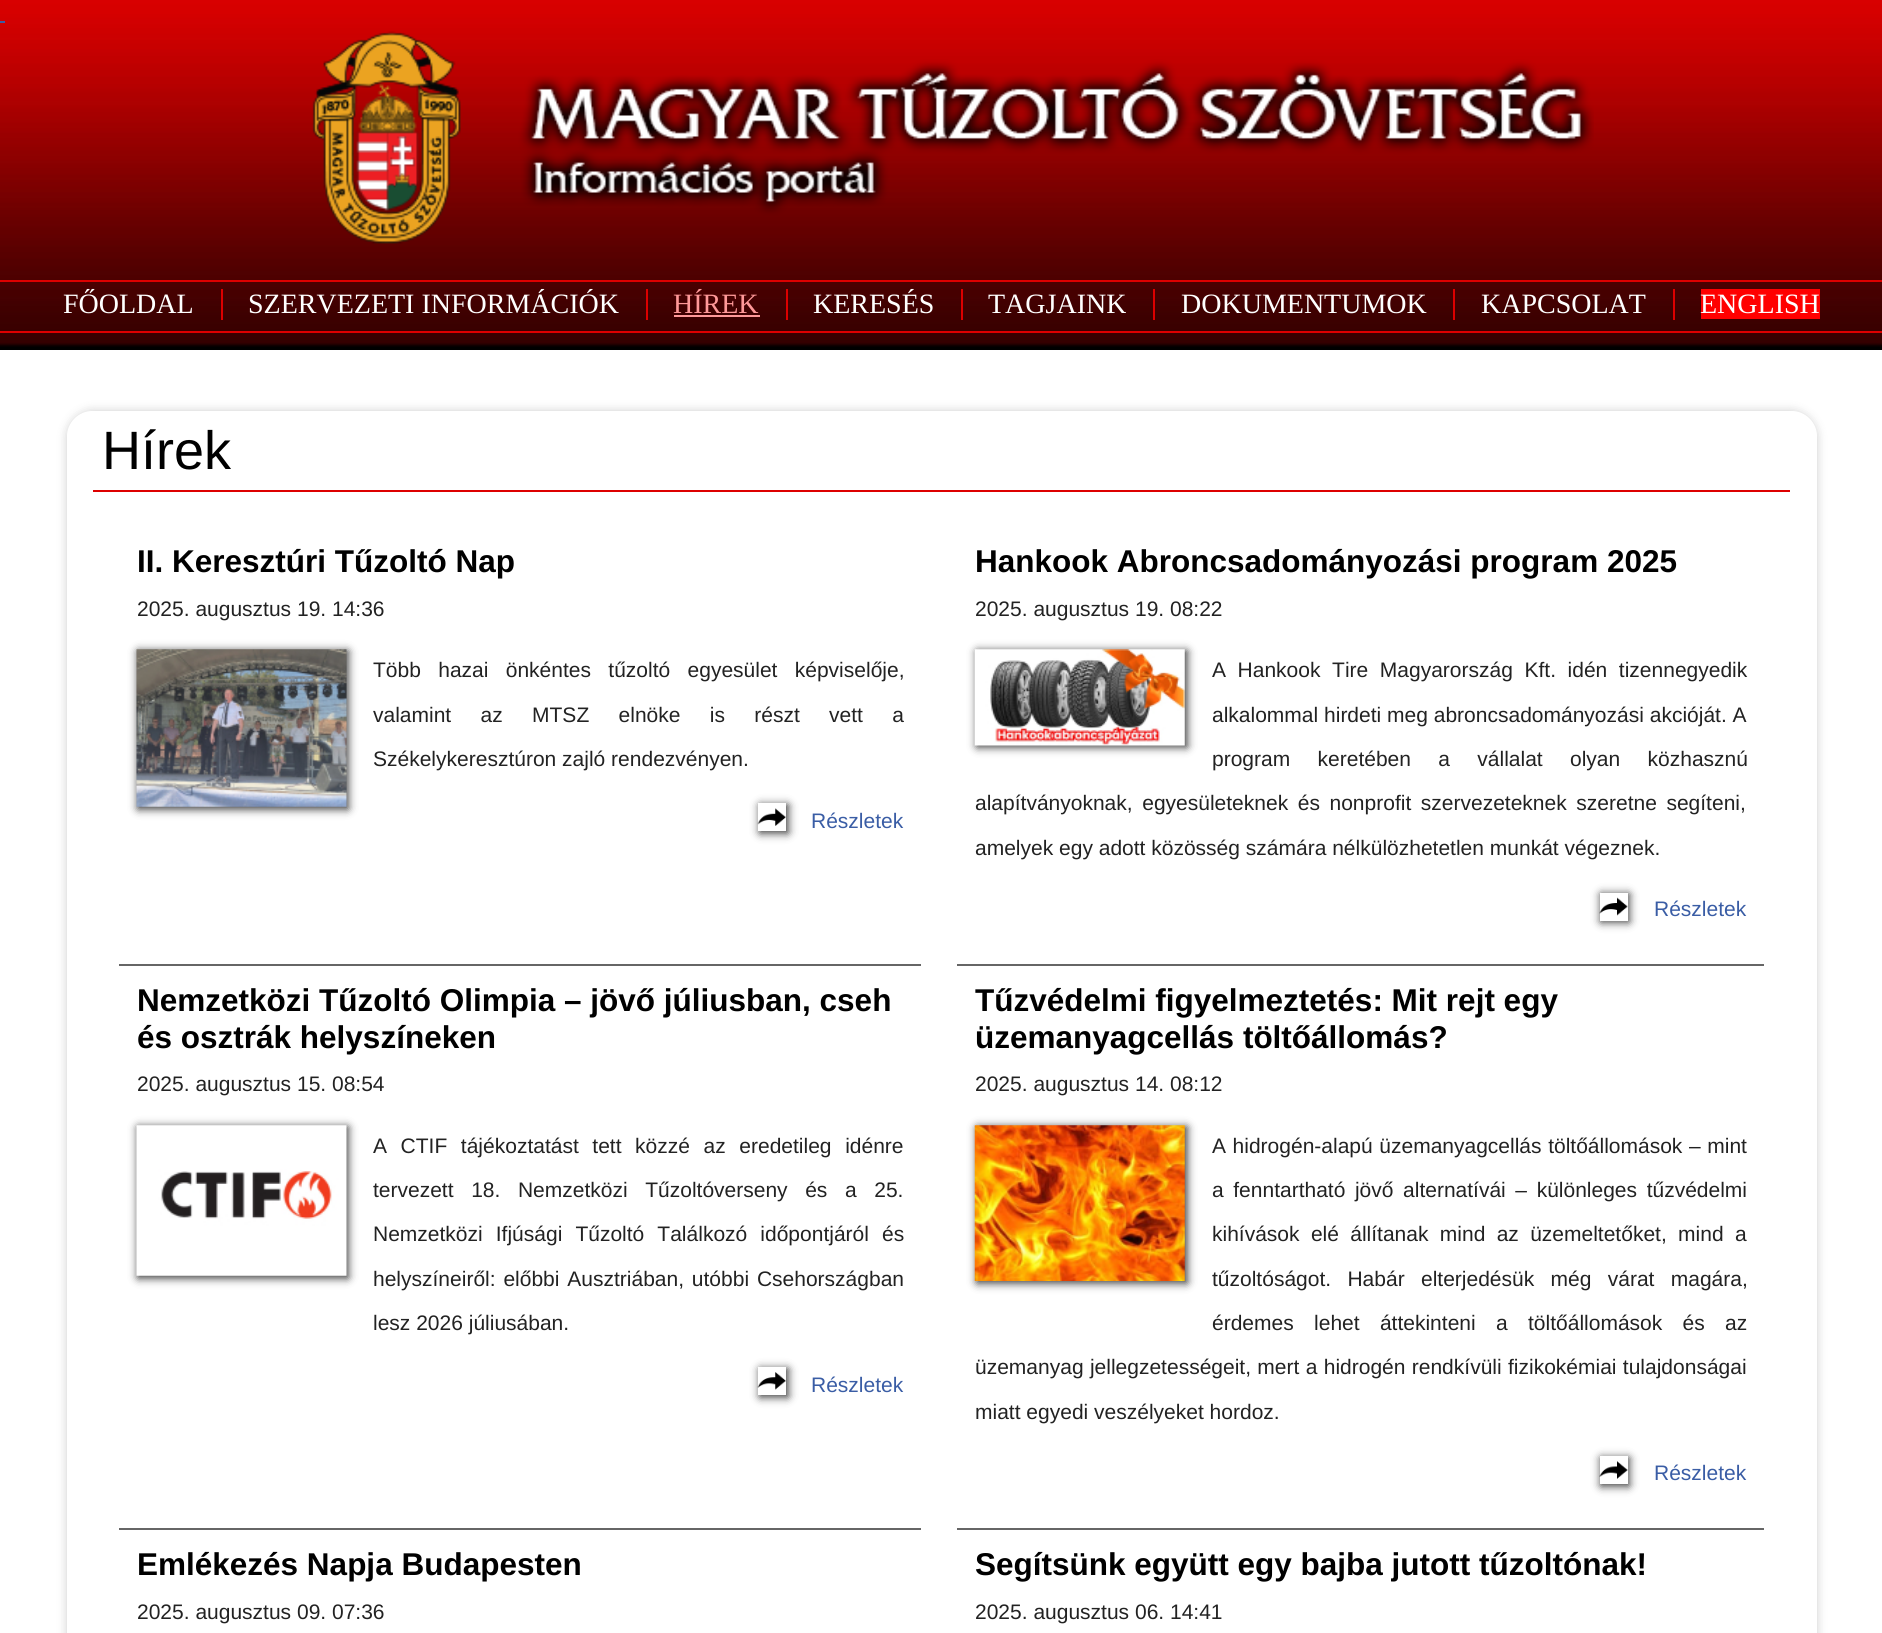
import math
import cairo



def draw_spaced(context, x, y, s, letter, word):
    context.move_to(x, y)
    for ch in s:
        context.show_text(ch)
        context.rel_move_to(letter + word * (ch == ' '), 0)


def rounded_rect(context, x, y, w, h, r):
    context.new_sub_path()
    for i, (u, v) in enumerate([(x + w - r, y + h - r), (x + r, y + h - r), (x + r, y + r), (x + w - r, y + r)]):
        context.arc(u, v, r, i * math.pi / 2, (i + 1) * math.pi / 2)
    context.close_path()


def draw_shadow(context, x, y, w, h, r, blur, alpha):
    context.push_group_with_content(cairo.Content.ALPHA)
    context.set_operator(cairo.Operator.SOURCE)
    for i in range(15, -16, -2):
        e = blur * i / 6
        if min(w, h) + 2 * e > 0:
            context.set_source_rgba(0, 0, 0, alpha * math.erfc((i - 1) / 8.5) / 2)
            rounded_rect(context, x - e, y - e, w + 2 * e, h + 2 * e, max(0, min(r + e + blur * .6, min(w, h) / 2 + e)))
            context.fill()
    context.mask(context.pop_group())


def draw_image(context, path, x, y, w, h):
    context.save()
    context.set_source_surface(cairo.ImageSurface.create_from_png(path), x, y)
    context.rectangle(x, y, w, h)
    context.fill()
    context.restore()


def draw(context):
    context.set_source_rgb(1, 1, 1)
    context.paint()
    draw_image(context, "images/1.png", 0, 0, 1882, 350)
    context.set_source_rgb(58 / 255, 93 / 255, 165 / 255)
    context.rectangle(0, 21, 5, 2)
    context.fill()
    draw_image(context, "images/2.png", 312, 31, 1282, 213)
    context.set_source_rgb(221 / 255, 0, 0)
    context.rectangle(0, 280, 1882, 2)
    context.fill()
    context.rectangle(0, 331, 1882, 2)
    context.fill()
    context.rectangle(221, 289, 2, 31)
    context.fill()
    context.rectangle(646, 289, 2, 31)
    context.fill()
    context.set_source_rgb(1, 153 / 255, 153 / 255)
    context.rectangle(674, 315, 86, 2)
    context.fill()
    context.set_source_rgb(221 / 255, 0, 0)
    context.rectangle(786, 289, 2, 31)
    context.fill()
    context.rectangle(961, 289, 2, 31)
    context.fill()
    context.rectangle(1153, 289, 2, 31)
    context.fill()
    context.rectangle(1453, 289, 2, 31)
    context.fill()
    context.rectangle(1673, 289, 2, 31)
    context.fill()
    context.set_source_rgb(1, 0, 0)
    context.rectangle(1701, 289, 119, 30)
    context.fill()
    context.save()
    context.set_fill_rule(cairo.FillRule.EVEN_ODD)
    context.new_path()
    context.move_to(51, 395)
    context.line_to(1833, 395)
    context.line_to(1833, 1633)
    context.line_to(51, 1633)
    context.close_path()
    context.move_to(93, 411)
    context.line_to(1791, 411)
    context.curve_to(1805.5, 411, 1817, 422.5, 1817, 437)
    context.line_to(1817, 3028)
    context.curve_to(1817, 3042.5, 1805.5, 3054, 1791, 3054)
    context.line_to(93, 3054)
    context.curve_to(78.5, 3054, 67, 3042.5, 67, 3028)
    context.line_to(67, 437)
    context.curve_to(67, 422.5, 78.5, 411, 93, 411)
    context.close_path()
    context.clip()
    context.set_source_rgb(0, 0, 0)
    draw_shadow(context, 67, 411, 1750, 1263, 26, 5, 0.2)
    context.restore()
    context.set_source_rgb(221 / 255, 0, 0)
    context.rectangle(93, 490, 1697, 2)
    context.fill()
    context.set_source_rgb(102 / 255, 102 / 255, 102 / 255)
    context.rectangle(119, 964, 802, 2)
    context.fill()
    context.set_source_rgb(51 / 255, 51 / 255, 51 / 255)
    draw_shadow(context, 138, 651, 210, 158, 0, 4.5, 1)
    draw_image(context, "images/3.png", 136, 649, 211, 158)
    context.save()
    context.set_fill_rule(cairo.FillRule.EVEN_ODD)
    context.new_path()
    context.move_to(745, 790)
    context.line_to(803, 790)
    context.line_to(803, 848)
    context.line_to(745, 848)
    context.close_path()
    context.move_to(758, 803)
    context.line_to(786, 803)
    context.line_to(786, 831)
    context.line_to(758, 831)
    context.close_path()
    context.clip()
    draw_shadow(context, 760, 805, 28, 28, 0, 4.5, 1)
    context.restore()
    draw_image(context, "images/4.png", 757, 808, 29, 18)
    context.set_source_rgb(102 / 255, 102 / 255, 102 / 255)
    context.rectangle(957, 964, 807, 2)
    context.fill()
    context.set_source_rgb(51 / 255, 51 / 255, 51 / 255)
    draw_shadow(context, 977, 651, 210, 96, 0, 4.5, 1)
    draw_image(context, "images/5.png", 974, 649, 211, 97)
    context.save()
    context.set_fill_rule(cairo.FillRule.EVEN_ODD)
    context.new_path()
    context.move_to(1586, 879)
    context.line_to(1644, 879)
    context.line_to(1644, 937)
    context.line_to(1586, 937)
    context.close_path()
    context.move_to(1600, 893)
    context.line_to(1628, 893)
    context.line_to(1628, 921)
    context.line_to(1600, 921)
    context.close_path()
    context.clip()
    draw_shadow(context, 1601, 894, 28, 28, 0, 4.5, 1)
    context.restore()
    draw_image(context, "images/6.png", 1599, 897, 29, 19)
    context.set_source_rgb(102 / 255, 102 / 255, 102 / 255)
    context.rectangle(119, 1528, 802, 2)
    context.fill()
    context.set_source_rgb(51 / 255, 51 / 255, 51 / 255)
    draw_shadow(context, 138, 1127, 210, 151, 0, 4.5, 1)
    draw_image(context, "images/7.png", 136, 1125, 211, 151)
    context.save()
    context.set_fill_rule(cairo.FillRule.EVEN_ODD)
    context.new_path()
    context.move_to(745, 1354)
    context.line_to(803, 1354)
    context.line_to(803, 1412)
    context.line_to(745, 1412)
    context.close_path()
    context.move_to(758, 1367)
    context.line_to(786, 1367)
    context.line_to(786, 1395)
    context.line_to(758, 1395)
    context.close_path()
    context.clip()
    draw_shadow(context, 760, 1369, 28, 28, 0, 4.5, 1)
    context.restore()
    draw_image(context, "images/8.png", 757, 1372, 29, 18)
    context.set_source_rgb(102 / 255, 102 / 255, 102 / 255)
    context.rectangle(957, 1528, 807, 2)
    context.fill()
    context.set_source_rgb(51 / 255, 51 / 255, 51 / 255)
    draw_shadow(context, 977, 1127, 210, 156, 0, 4.5, 1)
    draw_image(context, "images/9.png", 974, 1125, 211, 156)
    context.save()
    context.set_fill_rule(cairo.FillRule.EVEN_ODD)
    context.new_path()
    context.move_to(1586, 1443)
    context.line_to(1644, 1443)
    context.line_to(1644, 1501)
    context.line_to(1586, 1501)
    context.close_path()
    context.move_to(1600, 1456)
    context.line_to(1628, 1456)
    context.line_to(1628, 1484)
    context.line_to(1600, 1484)
    context.close_path()
    context.clip()
    draw_shadow(context, 1601, 1458, 28, 28, 0, 4.5, 1)
    context.restore()
    draw_image(context, "images/10.png", 1599, 1461, 29, 18)
    context.select_font_face("Liberation Serif")
    context.set_font_size(28)
    context.set_source_rgb(1, 1, 1)
    context.move_to(63, 313)
    context.show_text("FŐOLDAL")
    context.move_to(248, 313)
    context.show_text("SZERVEZETI INFORMÁCIÓK")
    context.set_source_rgb(1, 153 / 255, 153 / 255)
    context.move_to(673, 313)
    context.show_text("HÍREK")
    context.set_source_rgb(1, 1, 1)
    context.move_to(813, 313)
    context.show_text("KERESÉS")
    context.move_to(988, 313)
    context.show_text("TAGJAINK")
    context.move_to(1181, 313)
    context.show_text("DOKUMENTUMOK")
    context.move_to(1481, 313)
    context.show_text("KAPCSOLAT")
    context.move_to(1700, 313)
    context.show_text("ENGLISH")
    context.select_font_face("Liberation Sans")
    context.set_font_size(54)
    context.set_source_rgb(0, 0, 0)
    context.move_to(102, 469)
    context.show_text("Hírek")
    context.select_font_face("Liberation Sans", cairo.FontSlant.NORMAL, cairo.FontWeight.BOLD)
    context.set_font_size(31.5)
    context.move_to(137, 572)
    context.show_text("II. Keresztúri Tűzoltó Nap")
    context.select_font_face("Liberation Sans")
    context.set_font_size(21)
    context.set_source_rgb(34 / 255, 34 / 255, 34 / 255)
    context.move_to(137, 616)
    context.show_text("2025. augusztus 19. 14:36")
    draw_spaced(context, 373, 677, "Több hazai önkéntes tűzoltó egyesület képviselője,", 0, 11.5)
    draw_spaced(context, 373, 722, "valamint az MTSZ elnöke is részt vett a", 0, 23.5)
    context.move_to(373, 766)
    context.show_text("Székelykeresztúron zajló rendezvényen.")
    context.set_source_rgb(58 / 255, 93 / 255, 165 / 255)
    context.move_to(811, 828)
    context.show_text("Részletek")
    context.select_font_face("Liberation Sans", cairo.FontSlant.NORMAL, cairo.FontWeight.BOLD)
    context.set_font_size(31.5)
    context.set_source_rgb(0, 0, 0)
    context.move_to(975, 572)
    context.show_text("Hankook Abroncsadományozási program 2025")
    context.select_font_face("Liberation Sans")
    context.set_font_size(21)
    context.set_source_rgb(34 / 255, 34 / 255, 34 / 255)
    context.move_to(975, 616)
    context.show_text("2025. augusztus 19. 08:22")
    draw_spaced(context, 1212, 677, "A Hankook Tire Magyarország Kft. idén tizennegyedik", 0, 5.75)
    context.move_to(1212, 722)
    context.show_text("alkalommal hirdeti meg abroncsadományozási akcióját. A")
    draw_spaced(context, 1212, 766, "program keretében a vállalat olyan közhasznú", 0, 21.5)
    draw_spaced(context, 975, 810, "alapítványoknak, egyesületeknek és nonprofit szervezeteknek szeretne segíteni,", 0, 3.75)
    context.move_to(975, 855)
    context.show_text("amelyek egy adott közösség számára nélkülözhetetlen munkát végeznek.")
    context.set_source_rgb(58 / 255, 93 / 255, 165 / 255)
    context.move_to(1654, 916)
    context.show_text("Részletek")
    context.select_font_face("Liberation Sans", cairo.FontSlant.NORMAL, cairo.FontWeight.BOLD)
    context.set_font_size(31.5)
    context.set_source_rgb(0, 0, 0)
    context.move_to(137, 1011)
    context.show_text("Nemzetközi Tűzoltó Olimpia – jövő júliusban, cseh")
    context.move_to(137, 1048)
    context.show_text("és osztrák helyszíneken")
    context.select_font_face("Liberation Sans")
    context.set_font_size(21)
    context.set_source_rgb(34 / 255, 34 / 255, 34 / 255)
    context.move_to(137, 1091)
    context.show_text("2025. augusztus 15. 08:54")
    draw_spaced(context, 373, 1153, "A CTIF tájékoztatást tett közzé az eredetileg idénre", 0, 7.75)
    draw_spaced(context, 373, 1197, "tervezett 18. Nemzetközi Tűzoltóverseny és a 25.", 0, 11.75)
    draw_spaced(context, 373, 1241, "Nemzetközi Ifjúsági Tűzoltó Találkozó időpontjáról és", 0, 7.25)
    draw_spaced(context, 373, 1286, "helyszíneiről: előbbi Ausztriában, utóbbi Csehországban", 0, 2)
    context.move_to(373, 1330)
    context.show_text("lesz 2026 júliusában.")
    context.set_source_rgb(58 / 255, 93 / 255, 165 / 255)
    context.move_to(811, 1392)
    context.show_text("Részletek")
    context.select_font_face("Liberation Sans", cairo.FontSlant.NORMAL, cairo.FontWeight.BOLD)
    context.set_font_size(31.5)
    context.set_source_rgb(0, 0, 0)
    context.move_to(975, 1011)
    context.show_text("Tűzvédelmi figyelmeztetés: Mit rejt egy")
    context.move_to(975, 1048)
    context.show_text("üzemanyagcellás töltőállomás?")
    context.select_font_face("Liberation Sans")
    context.set_font_size(21)
    context.set_source_rgb(34 / 255, 34 / 255, 34 / 255)
    context.move_to(975, 1091)
    context.show_text("2025. augusztus 14. 08:12")
    draw_spaced(context, 1212, 1153, "A hidrogén-alapú üzemanyagcellás töltőállomások – mint", 0, 0.75)
    draw_spaced(context, 1212, 1197, "a fenntartható jövő alternatívái – különleges tűzvédelmi", 0, 3.75)
    draw_spaced(context, 1212, 1241, "kihívások elé állítanak mind az üzemeltetőket, mind a", 0, 5.5)
    draw_spaced(context, 1212, 1286, "tűzoltóságot. Habár elterjedésük még várat magára,", 0, 10.5)
    draw_spaced(context, 1212, 1330, "érdemes lehet áttekinteni a töltőállomások és az", 0, 14.5)
    draw_spaced(context, 975, 1374, "üzemanyag jellegzetességeit, mert a hidrogén rendkívüli fizikokémiai tulajdonságai", 0, 0.5)
    context.move_to(975, 1419)
    context.show_text("miatt egyedi veszélyeket hordoz.")
    context.set_source_rgb(58 / 255, 93 / 255, 165 / 255)
    context.move_to(1654, 1480)
    context.show_text("Részletek")
    context.select_font_face("Liberation Sans", cairo.FontSlant.NORMAL, cairo.FontWeight.BOLD)
    context.set_font_size(31.5)
    context.set_source_rgb(0, 0, 0)
    context.move_to(137, 1575)
    context.show_text("Emlékezés Napja Budapesten")
    context.select_font_face("Liberation Sans")
    context.set_font_size(21)
    context.set_source_rgb(34 / 255, 34 / 255, 34 / 255)
    context.move_to(137, 1619)
    context.show_text("2025. augusztus 09. 07:36")
    context.select_font_face("Liberation Sans", cairo.FontSlant.NORMAL, cairo.FontWeight.BOLD)
    context.set_font_size(31.5)
    context.set_source_rgb(0, 0, 0)
    context.move_to(975, 1575)
    context.show_text("Segítsünk együtt egy bajba jutott tűzoltónak!")
    context.select_font_face("Liberation Sans")
    context.set_font_size(21)
    context.set_source_rgb(34 / 255, 34 / 255, 34 / 255)
    context.move_to(975, 1619)
    context.show_text("2025. augusztus 06. 14:41")


surface = cairo.ImageSurface(cairo.Format.RGB24, 1882, 1633)
context = cairo.Context(surface)
options = cairo.FontOptions()
options.set_hint_metrics(cairo.HintMetrics.OFF)
options.set_hint_style(cairo.HintStyle.NONE)
context.set_font_options(options)
context.set_miter_limit(4)
draw(context)
surface.write_to_png("out.png")
